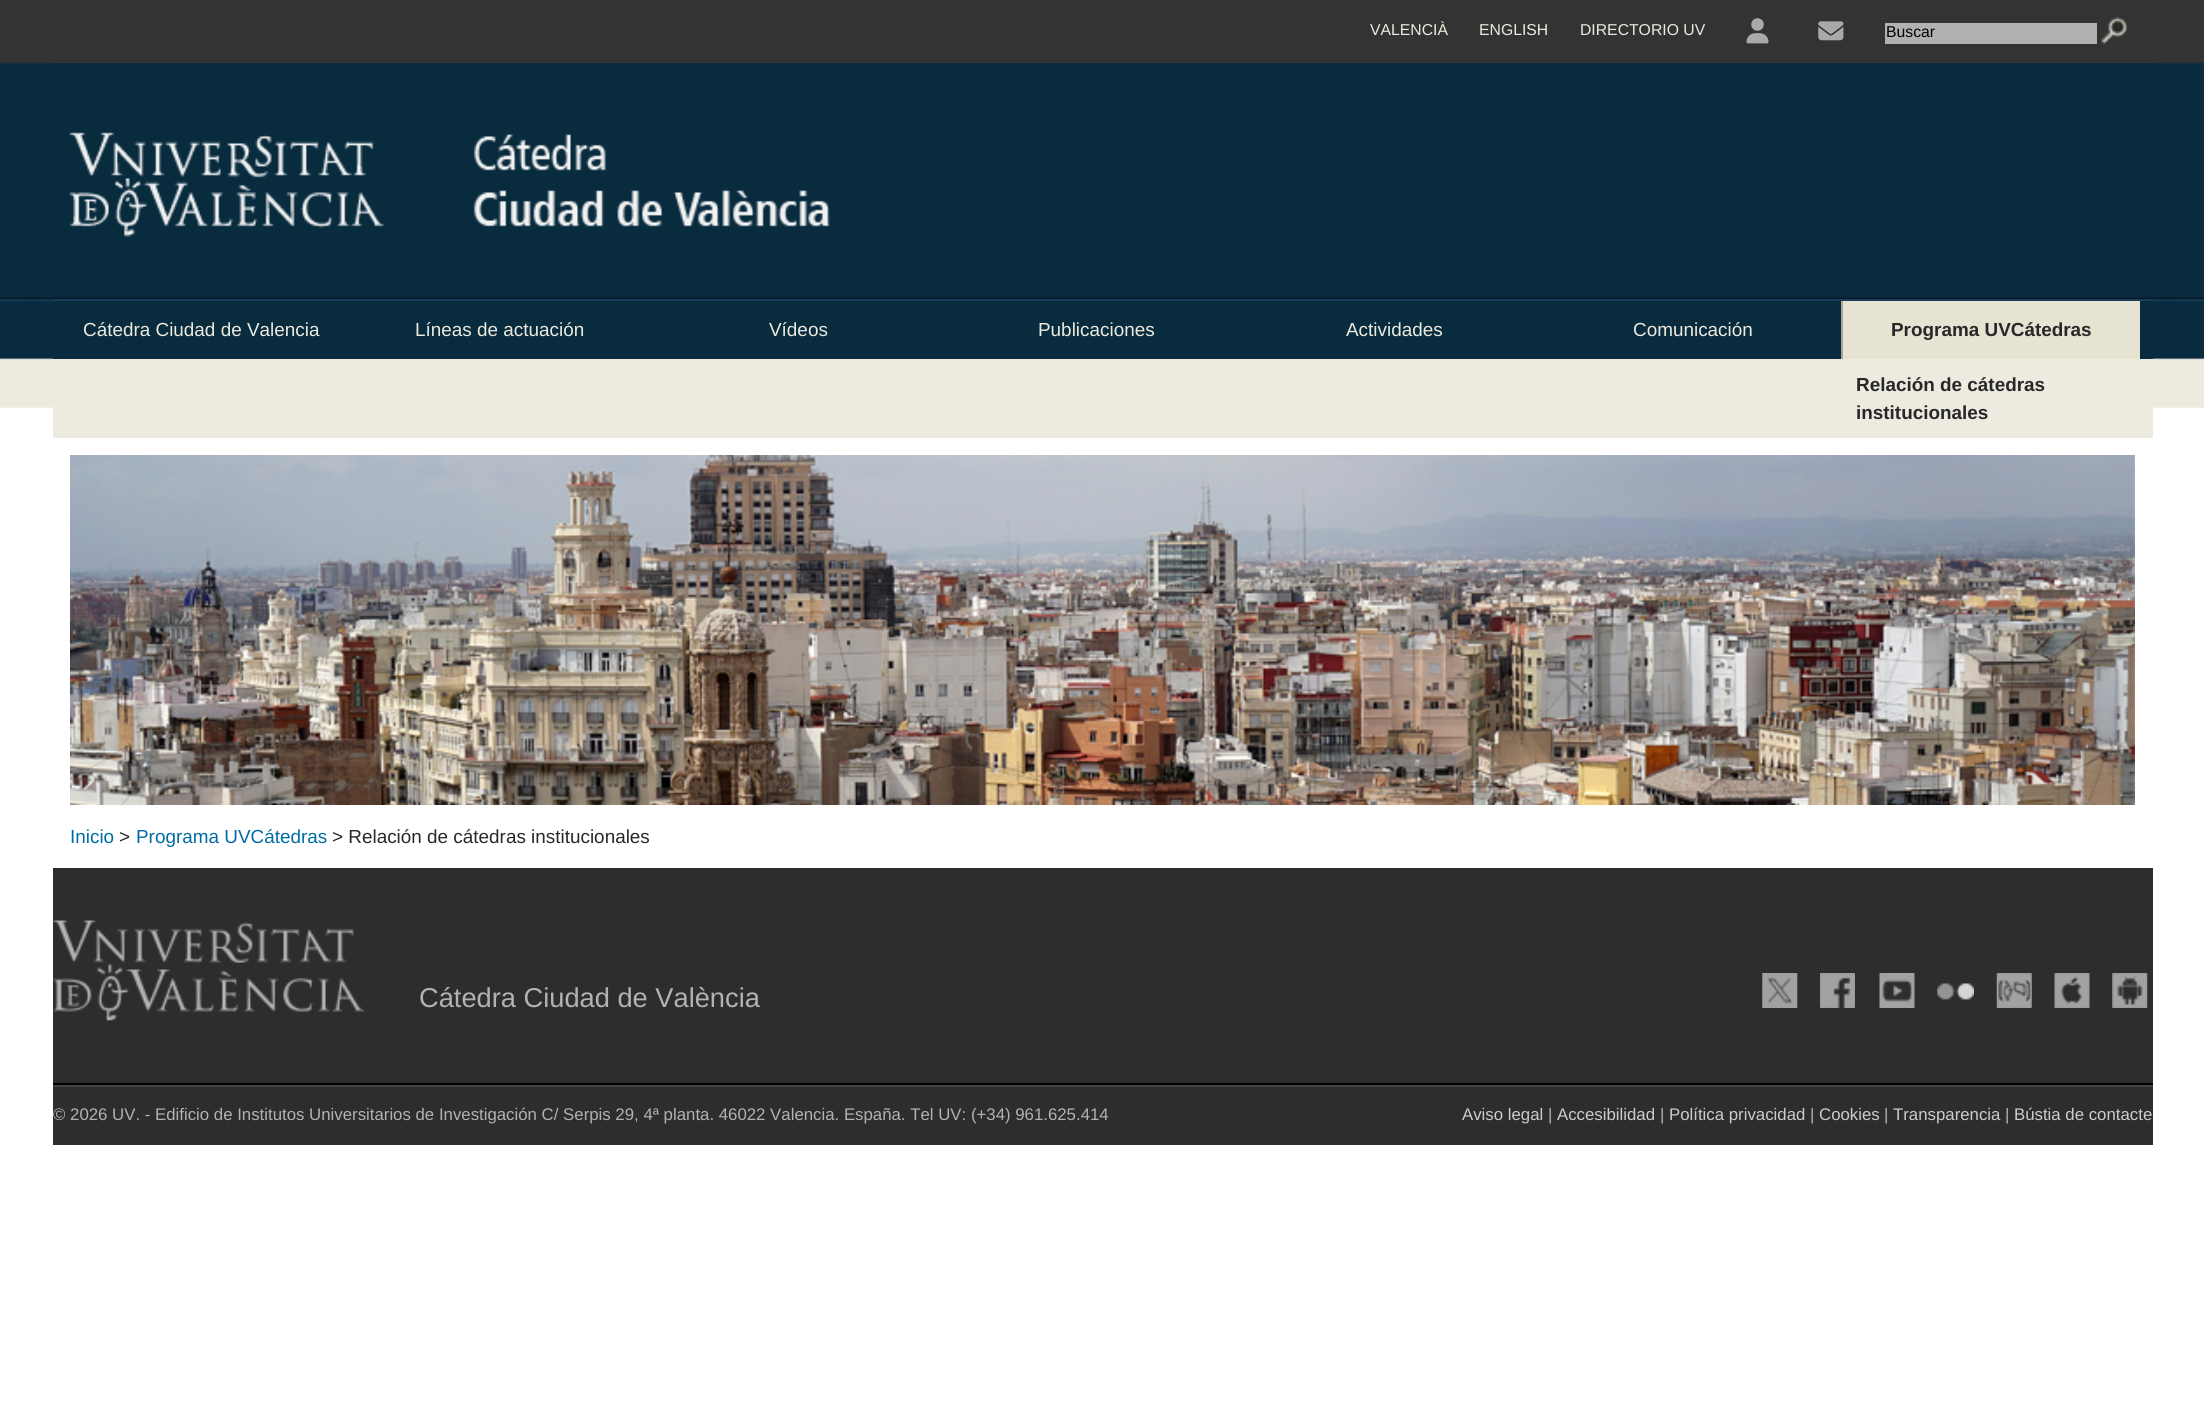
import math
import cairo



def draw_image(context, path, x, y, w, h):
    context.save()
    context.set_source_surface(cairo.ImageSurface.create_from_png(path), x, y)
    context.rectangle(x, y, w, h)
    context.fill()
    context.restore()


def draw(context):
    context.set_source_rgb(1, 1, 1)
    context.paint()
    draw_image(context, "images/1.png", 0, 0, 2204, 408)
    context.set_source_rgb(51 / 255, 51 / 255, 51 / 255)
    context.rectangle(53, 62, 2100, 1)
    context.fill()
    draw_image(context, "images/2.png", 1746, 18, 23, 26)
    draw_image(context, "images/3.png", 1818, 21, 26, 20)
    context.set_source_rgb(177 / 255, 177 / 255, 177 / 255)
    context.rectangle(1885, 23, 212, 21)
    context.fill()
    draw_image(context, "images/4.png", 2101, 17, 26, 27)
    context.set_source_rgb(8 / 255, 43 / 255, 62 / 255)
    context.rectangle(2152, 63, 1, 236)
    context.fill()
    draw_image(context, "images/5.png", 52, 63, 2101, 237)
    draw_image(context, "images/6.png", 68, 132, 762, 105)
    context.rectangle(53, 301, 2100, 58)
    context.fill()
    context.set_source_rgb(26 / 255, 59 / 255, 90 / 255)
    context.rectangle(53, 299, 2100, 2)
    context.fill()
    context.set_source_rgb(230 / 255, 227 / 255, 210 / 255)
    context.rectangle(1843, 301, 297, 58)
    context.fill()
    context.set_source_rgb(166 / 255, 166 / 255, 156 / 255)
    context.rectangle(1841, 301, 2, 58)
    context.fill()
    context.set_source_rgb(237 / 255, 234 / 255, 223 / 255)
    context.rectangle(53, 359, 2100, 79)
    context.fill()
    draw_image(context, "images/7.png", 70, 455, 2065, 350)
    context.set_source_rgb(45 / 255, 45 / 255, 45 / 255)
    context.rectangle(53, 868, 2100, 277)
    context.fill()
    draw_image(context, "images/8.png", 52, 920, 312, 101)
    draw_image(context, "images/9.png", 1762, 973, 36, 35)
    draw_image(context, "images/10.png", 1820, 973, 35, 35)
    draw_image(context, "images/11.png", 1879, 973, 36, 35)
    draw_image(context, "images/12.png", 1937, 983, 37, 17)
    draw_image(context, "images/13.png", 1996, 973, 36, 35)
    draw_image(context, "images/14.png", 2054, 973, 36, 35)
    draw_image(context, "images/15.png", 2112, 973, 36, 35)
    context.set_source_rgb(0, 0, 0)
    context.rectangle(53, 1083, 2100, 2)
    context.fill()
    context.set_source_rgb(68 / 255, 68 / 255, 68 / 255)
    context.rectangle(53, 1085, 2100, 2)
    context.fill()
    context.select_font_face("Liberation Sans")
    context.set_font_size(15.75)
    context.set_source_rgb(237 / 255, 234 / 255, 223 / 255)
    context.move_to(1370, 35)
    context.show_text("VALENCIÀ")
    context.move_to(1479, 35)
    context.show_text("ENGLISH")
    context.move_to(1580, 35)
    context.show_text("DIRECTORIO UV")
    context.set_source_rgb(0, 0, 0)
    context.move_to(1886, 37)
    context.show_text("Buscar")
    context.set_font_size(18.9)
    context.set_source_rgb(237 / 255, 234 / 255, 223 / 255)
    context.move_to(83, 336)
    context.show_text("Cátedra Ciudad de Valencia")
    context.move_to(415, 336)
    context.show_text("Líneas de actuación")
    context.move_to(769, 336)
    context.show_text("Vídeos")
    context.move_to(1038, 336)
    context.show_text("Publicaciones")
    context.move_to(1346, 336)
    context.show_text("Actividades")
    context.move_to(1633, 336)
    context.show_text("Comunicación")
    context.select_font_face("Liberation Sans", cairo.FontSlant.NORMAL, cairo.FontWeight.BOLD)
    context.set_source_rgb(40 / 255, 40 / 255, 40 / 255)
    context.move_to(1891, 336)
    context.show_text("Programa UVCátedras")
    context.move_to(1856, 391)
    context.show_text("Relación de cátedras")
    context.move_to(1856, 419)
    context.show_text("institucionales")
    context.select_font_face("Liberation Sans")
    context.set_source_rgb(1 / 255, 108 / 255, 162 / 255)
    context.move_to(70, 843)
    context.show_text("Inicio")
    context.set_source_rgb(40 / 255, 40 / 255, 40 / 255)
    context.move_to(119, 843)
    context.show_text(">")
    context.set_source_rgb(1 / 255, 108 / 255, 162 / 255)
    context.move_to(136, 843)
    context.show_text("Programa UVCátedras")
    context.set_source_rgb(40 / 255, 40 / 255, 40 / 255)
    context.move_to(332, 843)
    context.show_text("> Relación de cátedras institucionales")
    context.set_font_size(27.25)
    context.set_source_rgb(178 / 255, 178 / 255, 178 / 255)
    context.move_to(419, 1007)
    context.show_text("Cátedra Ciudad de València")
    context.set_font_size(16.8)
    context.move_to(53, 1120)
    context.show_text("© 2026 UV. - Edificio de Institutos Universitarios de Investigación C/ Serpis 29, 4ª planta. 46022 Valencia. España. Tel UV: (+34) 961.625.414")
    context.set_source_rgb(204 / 255, 204 / 255, 204 / 255)
    context.move_to(1462, 1120)
    context.show_text("Aviso legal")
    context.set_source_rgb(178 / 255, 178 / 255, 178 / 255)
    context.move_to(1548, 1120)
    context.show_text("|")
    context.set_source_rgb(204 / 255, 204 / 255, 204 / 255)
    context.move_to(1557, 1120)
    context.show_text("Accesibilidad")
    context.set_source_rgb(178 / 255, 178 / 255, 178 / 255)
    context.move_to(1660, 1120)
    context.show_text("|")
    context.set_source_rgb(204 / 255, 204 / 255, 204 / 255)
    context.move_to(1669, 1120)
    context.show_text("Política privacidad")
    context.set_source_rgb(178 / 255, 178 / 255, 178 / 255)
    context.move_to(1810, 1120)
    context.show_text("|")
    context.set_source_rgb(204 / 255, 204 / 255, 204 / 255)
    context.move_to(1819, 1120)
    context.show_text("Cookies")
    context.set_source_rgb(178 / 255, 178 / 255, 178 / 255)
    context.move_to(1884, 1120)
    context.show_text("|")
    context.set_source_rgb(204 / 255, 204 / 255, 204 / 255)
    context.move_to(1893, 1120)
    context.show_text("Transparencia")
    context.set_source_rgb(178 / 255, 178 / 255, 178 / 255)
    context.move_to(2005, 1120)
    context.show_text("|")
    context.set_source_rgb(204 / 255, 204 / 255, 204 / 255)
    context.move_to(2014, 1120)
    context.show_text("Bústia de contacte")


surface = cairo.ImageSurface(cairo.Format.RGB24, 2204, 1421)
context = cairo.Context(surface)
options = cairo.FontOptions()
options.set_hint_metrics(cairo.HintMetrics.OFF)
options.set_hint_style(cairo.HintStyle.NONE)
context.set_font_options(options)
context.set_miter_limit(4)
draw(context)
surface.write_to_png("out.png")
